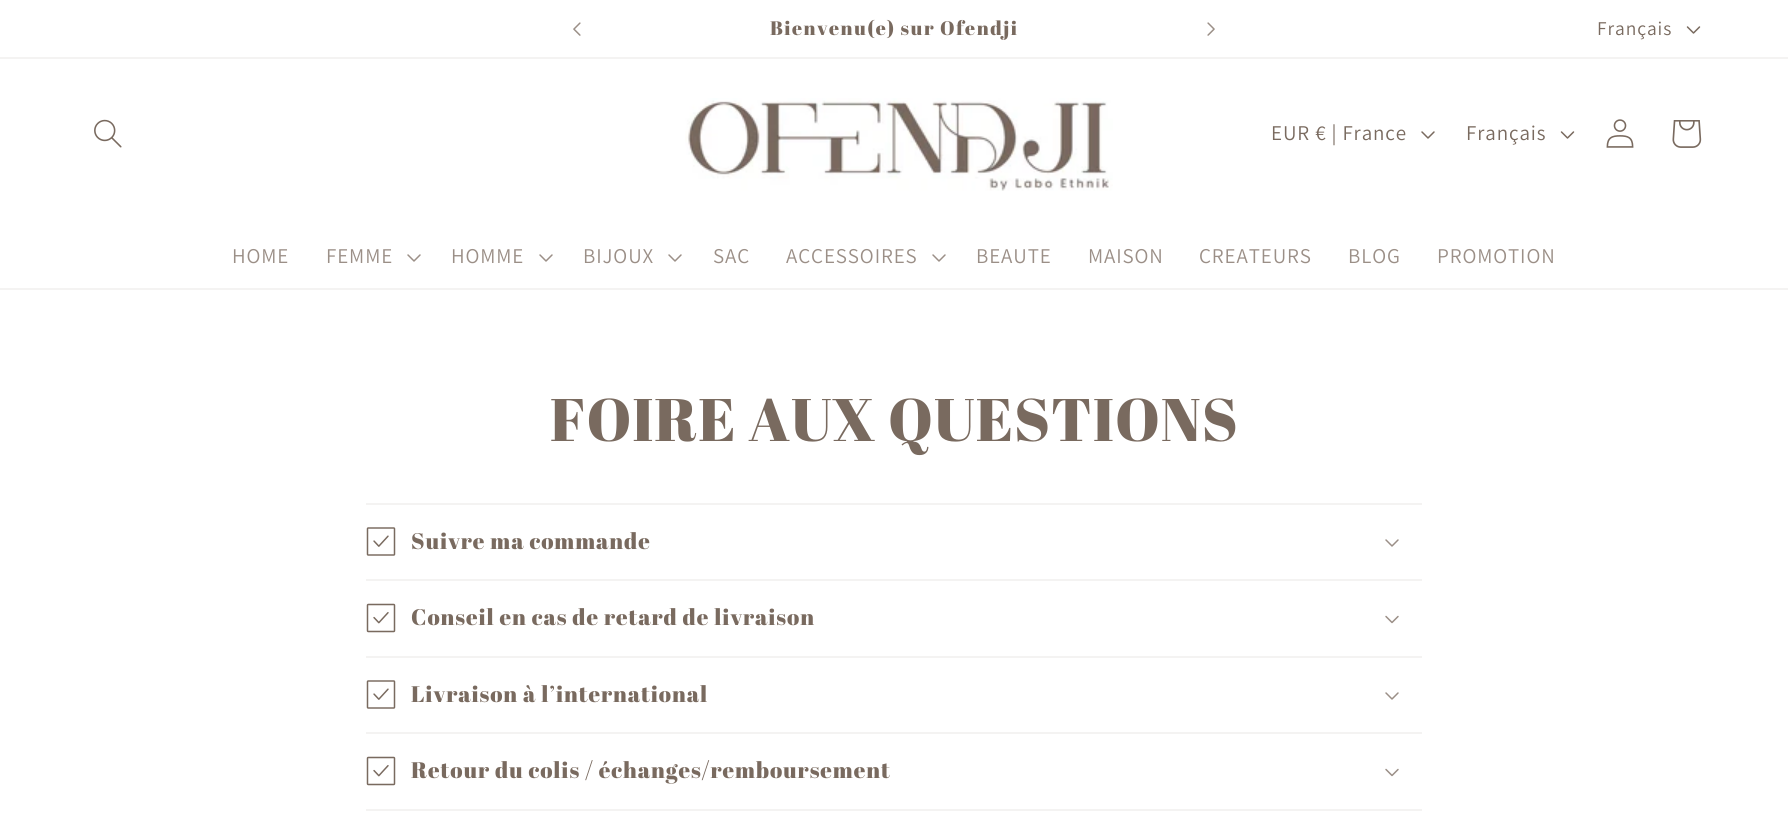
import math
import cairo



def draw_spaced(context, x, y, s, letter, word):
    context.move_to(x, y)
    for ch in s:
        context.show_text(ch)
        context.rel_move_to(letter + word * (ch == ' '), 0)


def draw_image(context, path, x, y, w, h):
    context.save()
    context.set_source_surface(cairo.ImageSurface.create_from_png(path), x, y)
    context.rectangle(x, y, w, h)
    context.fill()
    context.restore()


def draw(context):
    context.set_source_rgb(1, 1, 1)
    context.paint()
    context.set_source_rgb(244 / 255, 243 / 255, 242 / 255)
    context.rectangle(0, 57, 1788, 2)
    context.fill()
    draw_image(context, "images/1.png", 573, 22, 8, 14)
    draw_image(context, "images/2.png", 1207, 22, 8, 14)
    draw_image(context, "images/3.png", 1686, 26, 15, 8)
    context.rectangle(0, 288, 1788, 2)
    context.fill()
    draw_image(context, "images/4.png", 94, 119, 28, 29)
    draw_image(context, "images/5.png", 685, 98, 428, 93)
    draw_image(context, "images/6.png", 1421, 131, 14, 8)
    draw_image(context, "images/3.png", 1560, 131, 15, 8)
    draw_image(context, "images/7.png", 1606, 119, 28, 29)
    draw_image(context, "images/8.png", 1672, 120, 30, 28)
    draw_image(context, "images/9.png", 407, 254, 14, 8)
    draw_image(context, "images/9.png", 539, 254, 14, 8)
    draw_image(context, "images/9.png", 668, 254, 14, 8)
    draw_image(context, "images/9.png", 932, 254, 14, 8)
    context.rectangle(366, 503, 1056, 2)
    context.fill()
    context.rectangle(366, 579, 1056, 2)
    context.fill()
    draw_image(context, "images/10.png", 366, 527, 30, 29)
    draw_image(context, "images/9.png", 1385, 539, 14, 8)
    context.rectangle(366, 656, 1056, 2)
    context.fill()
    draw_image(context, "images/11.png", 366, 603, 30, 30)
    draw_image(context, "images/12.png", 1385, 615, 14, 9)
    context.rectangle(366, 732, 1056, 2)
    context.fill()
    draw_image(context, "images/10.png", 366, 680, 30, 29)
    draw_image(context, "images/9.png", 1385, 692, 14, 8)
    context.rectangle(366, 809, 1056, 2)
    context.fill()
    draw_image(context, "images/11.png", 366, 756, 30, 30)
    draw_image(context, "images/12.png", 1385, 768, 14, 9)
    context.select_font_face("Abril Fatface")
    context.set_font_size(19.5)
    context.set_source_rgb(121 / 255, 106 / 255, 95 / 255)
    draw_spaced(context, 770, 35, "Bienvenu(e) sur Ofendji", 1.5, 0)
    context.select_font_face("Assistant")
    draw_spaced(context, 1597, 35, "Français", 0.9, 0)
    context.set_font_size(21)
    draw_spaced(context, 1271, 140, "EUR € | France", 0.9, 0)
    draw_spaced(context, 1466, 140, "Français", 0.9, 0)
    context.set_source_rgb(155 / 255, 143 / 255, 135 / 255)
    draw_spaced(context, 232, 263, "HOME", 0.9, 0)
    draw_spaced(context, 326, 263, "FEMME", 0.9, 0)
    draw_spaced(context, 451, 263, "HOMME", 0.9, 0)
    draw_spaced(context, 583, 263, "BIJOUX", 0.9, 0)
    draw_spaced(context, 713, 263, "SAC", 0.9, 0)
    draw_spaced(context, 786, 263, "ACCESSOIRES", 0.9, 0)
    draw_spaced(context, 976, 263, "BEAUTE", 0.9, 0)
    draw_spaced(context, 1088, 263, "MAISON", 0.9, 0)
    draw_spaced(context, 1199, 263, "CREATEURS", 0.9, 0)
    draw_spaced(context, 1348, 263, "BLOG", 0.9, 0)
    draw_spaced(context, 1437, 263, "PROMOTION", 0.9, 0)
    context.select_font_face("Abril Fatface")
    context.set_font_size(60)
    context.set_source_rgb(121 / 255, 106 / 255, 95 / 255)
    draw_spaced(context, 550, 441, "FOIRE AUX QUESTIONS", 0.9, 0)
    context.set_font_size(22.5)
    draw_spaced(context, 411, 549, "Suivre ma commande", 0.9, 0)
    draw_spaced(context, 411, 625, "Conseil en cas de retard de livraison", 0.9, 0)
    draw_spaced(context, 411, 702, "Livraison à l’international", 0.9, 0)
    draw_spaced(context, 411, 778, "Retour du colis / échanges/remboursement", 0.9, 0)


surface = cairo.ImageSurface(cairo.Format.RGB24, 1788, 817)
context = cairo.Context(surface)
options = cairo.FontOptions()
options.set_hint_metrics(cairo.HintMetrics.OFF)
options.set_hint_style(cairo.HintStyle.NONE)
context.set_font_options(options)
context.set_miter_limit(4)
draw(context)
surface.write_to_png("out.png")
